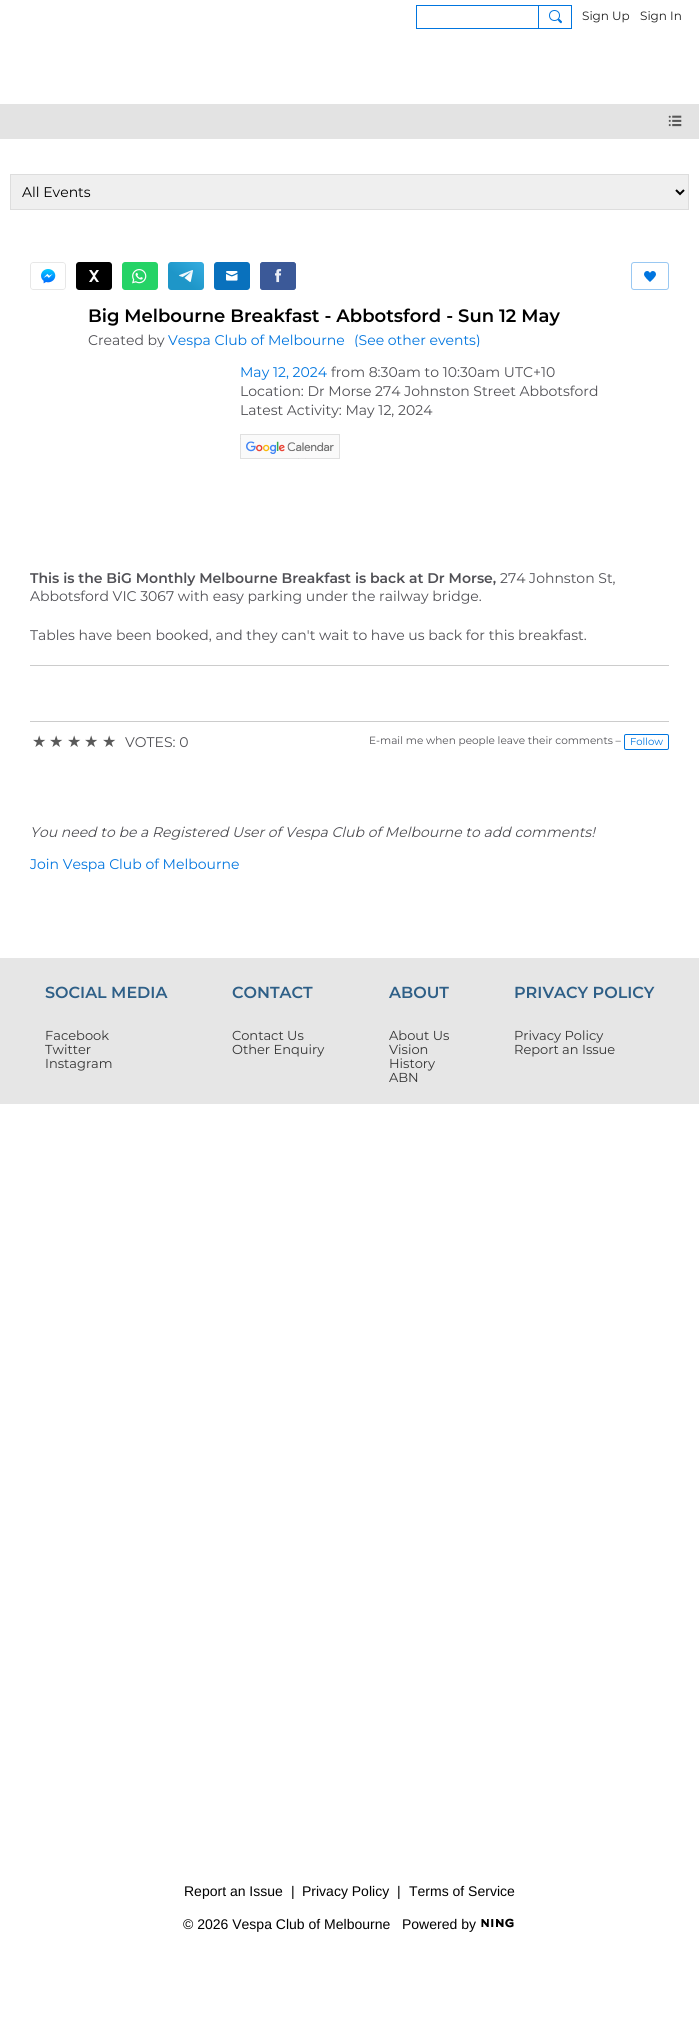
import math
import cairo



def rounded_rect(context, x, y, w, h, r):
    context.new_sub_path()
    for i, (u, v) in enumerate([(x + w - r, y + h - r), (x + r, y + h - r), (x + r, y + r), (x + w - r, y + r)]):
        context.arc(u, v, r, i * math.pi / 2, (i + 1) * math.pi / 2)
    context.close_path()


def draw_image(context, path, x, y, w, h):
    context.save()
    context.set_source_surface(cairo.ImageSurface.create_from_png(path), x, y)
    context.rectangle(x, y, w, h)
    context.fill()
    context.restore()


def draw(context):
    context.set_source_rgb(1, 1, 1)
    context.paint()
    context.rectangle(416.5, 5.5, 122, 23)
    context.set_source_rgb(0, 117 / 255, 223 / 255)
    context.set_line_width(1)
    context.stroke()
    context.rectangle(538.5, 5.5, 33, 23)
    context.stroke()
    context.arc(554.5, 15.5, 5, 0, 2 * math.pi)
    context.stroke()
    context.new_path()
    context.move_to(559.5, 19)
    context.line_to(562, 21.5)
    context.curve_to(562, 22, 562, 22.5, 561.5, 23)
    context.curve_to(560.5, 24, 559, 21.5, 558, 20.5)
    context.curve_to(557.5, 19.5, 558.5, 18.5, 559.5, 19)
    context.close_path()
    context.fill()
    context.set_source_rgb(227 / 255, 227 / 255, 227 / 255)
    context.rectangle(0, 104, 699, 35)
    context.fill()
    draw_image(context, "images/1.png", 668, 115, 14, 12)
    context.set_source_rgb(239 / 255, 239 / 255, 239 / 255)
    context.rectangle(10.5, 174.5, 678, 35)
    context.fill_preserve()
    context.set_source_rgb(221 / 255, 221 / 255, 221 / 255)
    context.stroke()
    context.new_path()
    context.move_to(676, 190)
    context.line_to(680, 194)
    context.line_to(684, 190)
    context.set_source_rgb(0, 0, 0)
    context.set_line_width(2)
    context.stroke()
    draw_image(context, "images/2.png", 30, 262, 36, 28)
    draw_image(context, "images/3.png", 76, 262, 36, 28)
    draw_image(context, "images/4.png", 122, 262, 36, 28)
    draw_image(context, "images/5.png", 168, 262, 36, 28)
    draw_image(context, "images/6.png", 214, 262, 36, 28)
    context.set_source_rgb(59 / 255, 89 / 255, 152 / 255)
    rounded_rect(context, 260, 262, 36, 28, 3)
    context.fill()
    draw_image(context, "images/7.png", 260, 262, 36, 28)
    rounded_rect(context, 631.5, 262.5, 37, 27, 2.5)
    context.set_source_rgb(153 / 255, 200 / 255, 242 / 255)
    context.set_line_width(1)
    context.stroke()
    draw_image(context, "images/8.png", 644, 271, 12, 11)
    draw_image(context, "images/9.png", 240, 434, 100, 25)
    context.set_source_rgb(204 / 255, 204 / 255, 204 / 255)
    context.rectangle(30, 665, 639, 1)
    context.fill()
    context.rectangle(30, 721, 639, 1)
    context.fill()
    rounded_rect(context, 624.5, 734.5, 44, 15, 1.5)
    context.set_source_rgb(0, 117 / 255, 223 / 255)
    context.stroke()
    context.set_source_rgb(230 / 255, 230 / 255, 230 / 255)
    context.rectangle(0, 958, 699, 146)
    context.fill()
    draw_image(context, "images/10.png", 481, 1918, 33, 10)
    context.select_font_face("Montserrat Thin")
    context.set_font_size(12)
    context.set_source_rgb(31 / 255, 31 / 255, 31 / 255)
    context.move_to(582, 20)
    context.show_text("Sign Up")
    context.move_to(640, 20)
    context.show_text("Sign In")
    context.set_font_size(14)
    context.set_source_rgb(0, 0, 0)
    context.move_to(22, 197)
    context.show_text("All Events")
    context.select_font_face("Montserrat SemiBold")
    context.set_font_size(18)
    context.move_to(88, 322)
    context.show_text("Big Melbourne Breakfast - Abbotsford - Sun 12 May")
    context.save()
    context.rectangle(88, 304, 581, 43)
    context.clip()
    context.select_font_face("Montserrat Thin")
    context.set_font_size(14)
    context.set_source_rgb(80 / 255, 80 / 255, 85 / 255)
    context.move_to(88, 345)
    context.show_text("Created by")
    context.restore()
    context.select_font_face("Montserrat Thin")
    context.set_font_size(14)
    context.set_source_rgb(0, 117 / 255, 223 / 255)
    context.move_to(168, 345)
    context.show_text("Vespa Club of Melbourne")
    context.save()
    context.rectangle(88, 304, 581, 43)
    context.clip()
    context.move_to(354, 345)
    context.show_text("(See other events)")
    context.restore()
    context.move_to(240, 377)
    context.show_text("May 12, 2024")
    context.set_source_rgb(80 / 255, 80 / 255, 85 / 255)
    context.move_to(331, 377)
    context.show_text("from 8:30am to 10:30am UTC+10")
    context.move_to(240, 396)
    context.show_text("Location: Dr Morse 274 Johnston Street Abbotsford")
    context.move_to(240, 415)
    context.show_text("Latest Activity: May 12, 2024")
    context.select_font_face("Montserrat SemiBold")
    context.move_to(30, 583)
    context.show_text("This is the BiG Monthly Melbourne Breakfast is back at Dr Morse,")
    context.select_font_face("Montserrat Thin")
    context.move_to(500, 583)
    context.show_text("274 Johnston St,")
    context.move_to(30, 601)
    context.show_text("Abbotsford VIC 3067 with easy parking under the railway bridge.")
    context.move_to(30, 640)
    context.show_text("Tables have been booked, and they can't wait to have us back for this breakfast.")
    context.select_font_face("DejaVu Sans")
    context.set_font_size(16)
    context.set_source_rgb(89 / 255, 89 / 255, 89 / 255)
    context.move_to(32, 747)
    context.show_text("★")
    context.move_to(49, 747)
    context.show_text("★")
    context.move_to(67, 747)
    context.show_text("★")
    context.move_to(84, 747)
    context.show_text("★")
    context.move_to(102, 747)
    context.show_text("★")
    context.select_font_face("Montserrat Thin")
    context.set_font_size(14)
    context.set_source_rgb(80 / 255, 80 / 255, 85 / 255)
    context.move_to(125, 747)
    context.show_text("VOTES: 0")
    context.set_font_size(10.5)
    context.move_to(369, 744)
    context.show_text("E-mail me when people leave their comments –")
    context.set_font_size(10)
    context.set_source_rgb(0, 117 / 255, 223 / 255)
    context.move_to(630, 745)
    context.show_text("Follow")
    context.select_font_face("Montserrat Thin", cairo.FontSlant.ITALIC)
    context.set_font_size(14)
    context.set_source_rgb(80 / 255, 80 / 255, 85 / 255)
    context.move_to(30, 837)
    context.show_text("You need to be a Registered User of Vespa Club of Melbourne to add comments!")
    context.select_font_face("Montserrat Thin")
    context.set_source_rgb(0, 117 / 255, 223 / 255)
    context.move_to(30, 869)
    context.show_text("Join Vespa Club of Melbourne")
    context.select_font_face("Montserrat SemiBold")
    context.set_font_size(16)
    context.set_source_rgb(46 / 255, 95 / 255, 135 / 255)
    context.move_to(45, 998)
    context.show_text("SOCIAL MEDIA")
    context.select_font_face("Montserrat Thin")
    context.set_font_size(13)
    context.set_source_rgb(51 / 255, 51 / 255, 51 / 255)
    context.move_to(45, 1040)
    context.show_text("Facebook")
    context.move_to(45, 1054)
    context.show_text("Twitter")
    context.move_to(45, 1068)
    context.show_text("Instagram")
    context.select_font_face("Montserrat SemiBold")
    context.set_font_size(16)
    context.set_source_rgb(46 / 255, 95 / 255, 135 / 255)
    context.move_to(232, 998)
    context.show_text("CONTACT")
    context.select_font_face("Montserrat Thin")
    context.set_font_size(13)
    context.set_source_rgb(51 / 255, 51 / 255, 51 / 255)
    context.move_to(232, 1040)
    context.show_text("Contact Us")
    context.move_to(232, 1054)
    context.show_text("Other Enquiry")
    context.select_font_face("Montserrat SemiBold")
    context.set_font_size(16)
    context.set_source_rgb(46 / 255, 95 / 255, 135 / 255)
    context.move_to(389, 998)
    context.show_text("ABOUT")
    context.select_font_face("Montserrat Thin")
    context.set_font_size(13)
    context.set_source_rgb(51 / 255, 51 / 255, 51 / 255)
    context.move_to(389, 1040)
    context.show_text("About Us")
    context.move_to(389, 1054)
    context.show_text("Vision")
    context.move_to(389, 1068)
    context.show_text("History")
    context.move_to(389, 1082)
    context.show_text("ABN")
    context.select_font_face("Montserrat SemiBold")
    context.set_font_size(16)
    context.set_source_rgb(46 / 255, 95 / 255, 135 / 255)
    context.move_to(514, 998)
    context.show_text("PRIVACY POLICY")
    context.select_font_face("Montserrat Thin")
    context.set_font_size(13)
    context.set_source_rgb(51 / 255, 51 / 255, 51 / 255)
    context.move_to(514, 1040)
    context.show_text("Privacy Policy")
    context.move_to(514, 1054)
    context.show_text("Report an Issue")
    context.select_font_face("Liberation Sans")
    context.set_font_size(14)
    context.set_source_rgb(0, 0, 0)
    context.move_to(184, 1896)
    context.show_text("Report an Issue")
    context.move_to(291, 1896)
    context.show_text("|")
    context.move_to(302, 1896)
    context.show_text("Privacy Policy")
    context.move_to(397, 1896)
    context.show_text("|")
    context.move_to(409, 1896)
    context.show_text("Terms of Service")
    context.move_to(183, 1929)
    context.show_text("© 2026 Vespa Club of Melbourne")
    context.move_to(402, 1929)
    context.show_text("Powered by")


surface = cairo.ImageSurface(cairo.Format.RGB24, 699, 2032)
context = cairo.Context(surface)
options = cairo.FontOptions()
options.set_hint_metrics(cairo.HintMetrics.OFF)
options.set_hint_style(cairo.HintStyle.NONE)
context.set_font_options(options)
context.set_miter_limit(4)
draw(context)
surface.write_to_png("out.png")
